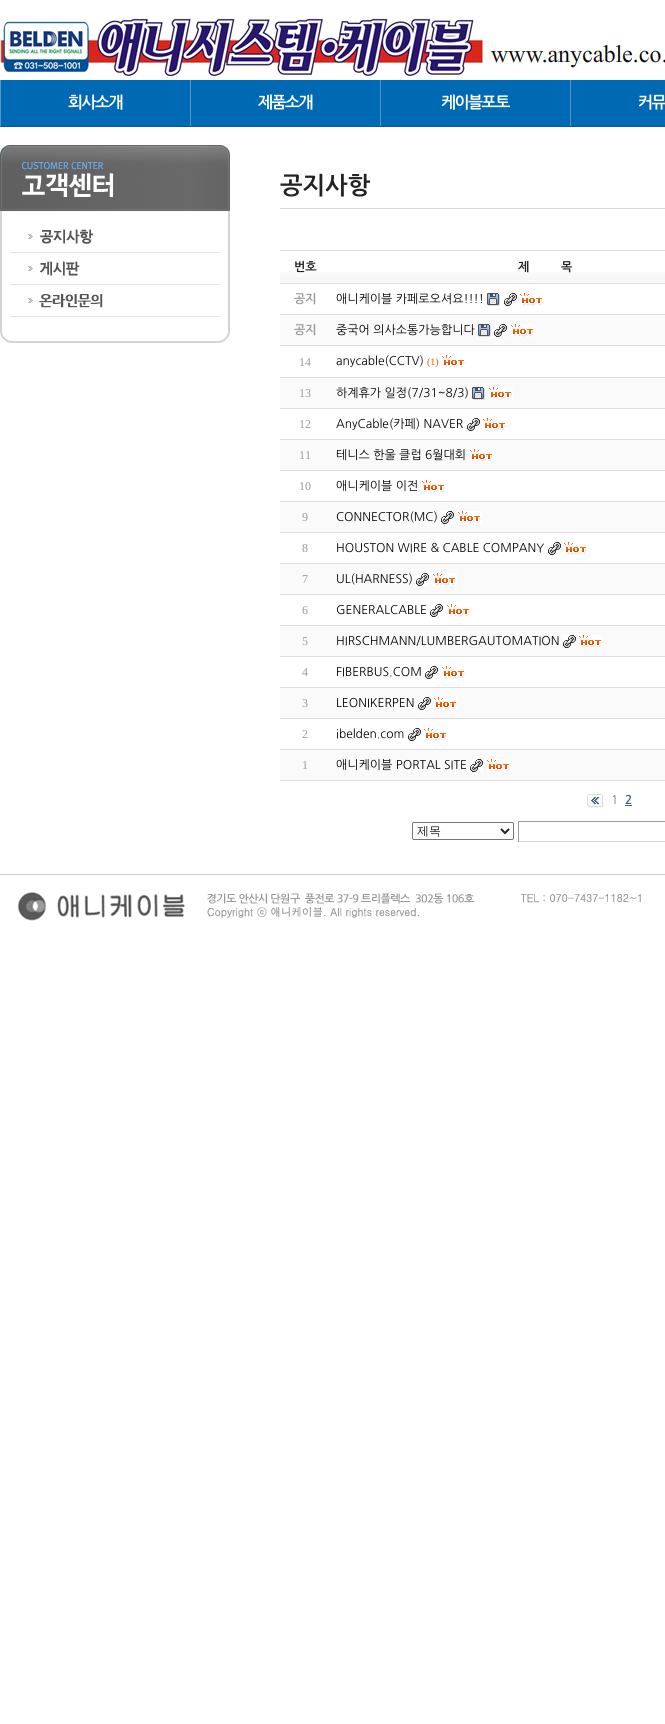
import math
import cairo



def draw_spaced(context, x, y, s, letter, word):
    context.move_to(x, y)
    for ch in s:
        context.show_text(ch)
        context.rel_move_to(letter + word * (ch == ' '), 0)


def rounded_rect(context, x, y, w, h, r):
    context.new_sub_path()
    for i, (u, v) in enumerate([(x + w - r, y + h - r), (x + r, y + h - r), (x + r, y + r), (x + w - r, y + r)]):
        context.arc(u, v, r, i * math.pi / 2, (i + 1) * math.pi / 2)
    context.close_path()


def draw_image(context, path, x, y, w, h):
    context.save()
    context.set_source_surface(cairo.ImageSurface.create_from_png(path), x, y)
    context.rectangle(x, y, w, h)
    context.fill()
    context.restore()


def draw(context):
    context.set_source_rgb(1, 1, 1)
    context.paint()
    draw_image(context, "images/1.png", 0, 15, 665, 61)
    context.set_source_rgb(0, 105 / 255, 179 / 255)
    context.rectangle(1, 80, 664, 46)
    context.fill()
    context.set_source_rgb(2 / 255, 87 / 255, 200 / 255)
    context.rectangle(0, 126, 665, 1)
    context.fill()
    context.set_source_rgb(84 / 255, 150 / 255, 197 / 255)
    context.rectangle(0, 80, 1, 46)
    context.fill()
    context.rectangle(190, 80, 1, 46)
    context.fill()
    context.rectangle(380, 80, 1, 46)
    context.fill()
    context.rectangle(570, 80, 1, 46)
    context.fill()
    draw_image(context, "images/2.png", 0, 145, 230, 76)
    draw_image(context, "images/3.png", 0, 221, 230, 32)
    draw_image(context, "images/4.png", 0, 253, 230, 32)
    draw_image(context, "images/5.png", 0, 285, 230, 32)
    draw_image(context, "images/6.png", 0, 317, 230, 26)
    context.set_source_rgb(215 / 255, 215 / 255, 215 / 255)
    context.rectangle(280, 208, 385, 1)
    context.fill()
    draw_image(context, "images/7.png", 280, 272, 50, 11)
    context.set_source_rgb(221 / 255, 221 / 255, 221 / 255)
    context.rectangle(280, 250, 385, 1)
    context.fill()
    context.rectangle(280, 283, 385, 1)
    context.fill()
    draw_image(context, "images/8.png", 330, 272, 335, 11)
    context.rectangle(280, 314, 385, 1)
    context.fill()
    draw_image(context, "images/9.png", 487, 293, 13, 13)
    draw_image(context, "images/10.png", 504, 293, 13, 13)
    draw_image(context, "images/11.png", 520, 293, 24, 13)
    context.set_source_rgb(250 / 255, 250 / 255, 250 / 255)
    context.rectangle(280, 315, 385, 30)
    context.fill()
    context.set_source_rgb(221 / 255, 221 / 255, 221 / 255)
    context.rectangle(280, 345, 385, 1)
    context.fill()
    draw_image(context, "images/9.png", 478, 324, 13, 13)
    draw_image(context, "images/10.png", 494, 324, 13, 13)
    draw_image(context, "images/11.png", 511, 324, 24, 13)
    context.rectangle(280, 377, 385, 1)
    context.fill()
    draw_image(context, "images/11.png", 442, 355, 24, 13)
    context.set_source_rgb(250 / 255, 250 / 255, 250 / 255)
    context.rectangle(280, 378, 385, 30)
    context.fill()
    context.set_source_rgb(221 / 255, 221 / 255, 221 / 255)
    context.rectangle(280, 408, 385, 1)
    context.fill()
    draw_image(context, "images/9.png", 472, 387, 13, 13)
    draw_image(context, "images/11.png", 489, 387, 24, 13)
    context.rectangle(280, 439, 385, 1)
    context.fill()
    draw_image(context, "images/10.png", 467, 418, 13, 13)
    draw_image(context, "images/11.png", 483, 418, 24, 13)
    context.set_source_rgb(250 / 255, 250 / 255, 250 / 255)
    context.rectangle(280, 440, 385, 30)
    context.fill()
    context.set_source_rgb(221 / 255, 221 / 255, 221 / 255)
    context.rectangle(280, 470, 385, 1)
    context.fill()
    draw_image(context, "images/11.png", 470, 449, 24, 13)
    context.rectangle(280, 501, 385, 1)
    context.fill()
    draw_image(context, "images/11.png", 422, 480, 24, 13)
    context.set_source_rgb(250 / 255, 250 / 255, 250 / 255)
    context.rectangle(280, 502, 385, 30)
    context.fill()
    context.set_source_rgb(221 / 255, 221 / 255, 221 / 255)
    context.rectangle(280, 532, 385, 1)
    context.fill()
    draw_image(context, "images/10.png", 441, 511, 13, 13)
    draw_image(context, "images/11.png", 458, 511, 24, 13)
    context.rectangle(280, 563, 385, 1)
    context.fill()
    draw_image(context, "images/10.png", 548, 542, 13, 13)
    draw_image(context, "images/11.png", 564, 542, 24, 13)
    context.set_source_rgb(250 / 255, 250 / 255, 250 / 255)
    context.rectangle(280, 564, 385, 30)
    context.fill()
    context.set_source_rgb(221 / 255, 221 / 255, 221 / 255)
    context.rectangle(280, 594, 385, 1)
    context.fill()
    draw_image(context, "images/10.png", 416, 573, 13, 13)
    draw_image(context, "images/11.png", 433, 573, 24, 13)
    context.rectangle(280, 625, 385, 1)
    context.fill()
    draw_image(context, "images/10.png", 430, 604, 13, 13)
    draw_image(context, "images/11.png", 447, 604, 24, 13)
    context.set_source_rgb(250 / 255, 250 / 255, 250 / 255)
    context.rectangle(280, 626, 385, 30)
    context.fill()
    context.set_source_rgb(221 / 255, 221 / 255, 221 / 255)
    context.rectangle(280, 656, 385, 1)
    context.fill()
    draw_image(context, "images/10.png", 563, 635, 13, 13)
    draw_image(context, "images/11.png", 579, 635, 24, 13)
    context.rectangle(280, 687, 385, 1)
    context.fill()
    draw_image(context, "images/10.png", 425, 666, 13, 13)
    draw_image(context, "images/11.png", 442, 666, 24, 13)
    context.set_source_rgb(250 / 255, 250 / 255, 250 / 255)
    context.rectangle(280, 688, 385, 30)
    context.fill()
    context.set_source_rgb(221 / 255, 221 / 255, 221 / 255)
    context.rectangle(280, 718, 385, 1)
    context.fill()
    draw_image(context, "images/10.png", 418, 697, 13, 13)
    draw_image(context, "images/11.png", 434, 697, 24, 13)
    context.rectangle(280, 749, 385, 1)
    context.fill()
    draw_image(context, "images/10.png", 408, 728, 13, 13)
    draw_image(context, "images/11.png", 424, 728, 24, 13)
    context.set_source_rgb(250 / 255, 250 / 255, 250 / 255)
    context.rectangle(280, 750, 385, 30)
    context.fill()
    context.set_source_rgb(221 / 255, 221 / 255, 221 / 255)
    context.rectangle(280, 780, 385, 1)
    context.fill()
    draw_image(context, "images/10.png", 470, 759, 13, 13)
    draw_image(context, "images/11.png", 487, 759, 24, 13)
    draw_image(context, "images/12.png", 587, 794, 17, 14)
    context.set_source_rgb(77 / 255, 97 / 255, 133 / 255)
    context.rectangle(625, 805, 7, 1)
    context.fill()
    rounded_rect(context, 412.5, 822.5, 101, 17, 1.5)
    context.set_source_rgb(118 / 255, 118 / 255, 118 / 255)
    context.set_line_width(1)
    context.stroke()
    context.new_path()
    context.move_to(501, 829)
    context.line_to(505, 833)
    context.line_to(509, 829)
    context.set_source_rgb(34 / 255, 34 / 255, 34 / 255)
    context.set_line_width(2)
    context.stroke()
    context.set_source_rgb(154 / 255, 154 / 255, 154 / 255)
    context.rectangle(518, 821, 147, 1)
    context.fill()
    context.set_source_rgb(216 / 255, 216 / 255, 216 / 255)
    context.rectangle(518, 841, 147, 1)
    context.fill()
    context.set_source_rgb(154 / 255, 154 / 255, 154 / 255)
    context.rectangle(518, 821, 1, 21)
    context.fill()
    context.set_source_rgb(205 / 255, 213 / 255, 196 / 255)
    context.rectangle(0, 874, 665, 1)
    context.fill()
    draw_image(context, "images/13.png", 17, 892, 624, 29)
    context.select_font_face("NanumGothic", cairo.FontSlant.NORMAL, cairo.FontWeight.BOLD)
    context.set_font_size(16)
    context.set_source_rgb(1, 1, 1)
    draw_spaced(context, 68, 108, "회사소개", -1.5, 0)
    draw_spaced(context, 258, 108, "제품소개", -1.5, 0)
    draw_spaced(context, 441, 108, "케이블포토", -1.5, 0)
    draw_spaced(context, 638, 108, "커뮤", -1.5, 0)
    context.set_font_size(24)
    context.set_source_rgb(34 / 255, 34 / 255, 34 / 255)
    context.move_to(280, 194)
    context.show_text("공지사항")
    context.set_font_size(12)
    context.move_to(294, 271)
    context.show_text("번호")
    context.move_to(518, 271)
    context.show_text("제")
    context.move_to(561, 271)
    context.show_text("목")
    context.set_source_rgb(153 / 255, 153 / 255, 153 / 255)
    context.move_to(294, 303)
    context.show_text("공지")
    context.select_font_face("NanumGothic")
    context.set_source_rgb(0, 0, 0)
    context.move_to(336, 303)
    context.show_text("애니케이블 카페로오셔요!!!!")
    context.select_font_face("NanumGothic", cairo.FontSlant.NORMAL, cairo.FontWeight.BOLD)
    context.set_source_rgb(153 / 255, 153 / 255, 153 / 255)
    context.move_to(294, 334)
    context.show_text("공지")
    context.select_font_face("NanumGothic")
    context.set_source_rgb(0, 0, 0)
    context.move_to(336, 334)
    context.show_text("중국어 의사소통가능합니다")
    context.select_font_face("Liberation Serif")
    context.set_source_rgb(153 / 255, 153 / 255, 153 / 255)
    context.move_to(299, 366)
    context.show_text("14")
    context.select_font_face("NanumGothic")
    context.set_source_rgb(0, 0, 0)
    context.move_to(336, 365)
    context.show_text("anycable(CCTV)")
    context.select_font_face("Liberation Serif")
    context.set_font_size(10)
    context.set_source_rgb(238 / 255, 90 / 255, 0)
    context.move_to(427, 365)
    context.show_text("(1)")
    context.set_font_size(12)
    context.set_source_rgb(153 / 255, 153 / 255, 153 / 255)
    context.move_to(299, 397)
    context.show_text("13")
    context.select_font_face("NanumGothic")
    context.set_source_rgb(0, 0, 0)
    context.move_to(336, 397)
    context.show_text("하계휴가 일정(7/31~8/3)")
    context.select_font_face("Liberation Serif")
    context.set_source_rgb(153 / 255, 153 / 255, 153 / 255)
    context.move_to(299, 428)
    context.show_text("12")
    context.select_font_face("NanumGothic")
    context.set_source_rgb(0, 0, 0)
    context.move_to(336, 428)
    context.show_text("AnyCable(카페) NAVER")
    context.select_font_face("Liberation Serif")
    context.set_source_rgb(153 / 255, 153 / 255, 153 / 255)
    context.move_to(299, 459)
    context.show_text("11")
    context.select_font_face("NanumGothic")
    context.set_source_rgb(0, 0, 0)
    context.move_to(336, 459)
    context.show_text("테니스 한울 클럽 6월대회")
    context.select_font_face("Liberation Serif")
    context.set_source_rgb(153 / 255, 153 / 255, 153 / 255)
    context.move_to(299, 490)
    context.show_text("10")
    context.select_font_face("NanumGothic")
    context.set_source_rgb(0, 0, 0)
    context.move_to(336, 490)
    context.show_text("애니케이블 이전")
    context.select_font_face("Liberation Serif")
    context.set_source_rgb(153 / 255, 153 / 255, 153 / 255)
    context.move_to(302, 521)
    context.show_text("9")
    context.select_font_face("NanumGothic")
    context.set_source_rgb(0, 0, 0)
    context.move_to(336, 521)
    context.show_text("CONNECTOR(MC)")
    context.select_font_face("Liberation Serif")
    context.set_source_rgb(153 / 255, 153 / 255, 153 / 255)
    context.move_to(302, 552)
    context.show_text("8")
    context.select_font_face("NanumGothic")
    context.set_source_rgb(0, 0, 0)
    context.move_to(336, 552)
    context.show_text("HOUSTON WIRE & CABLE COMPANY")
    context.select_font_face("Liberation Serif")
    context.set_source_rgb(153 / 255, 153 / 255, 153 / 255)
    context.move_to(302, 583)
    context.show_text("7")
    context.select_font_face("NanumGothic")
    context.set_source_rgb(0, 0, 0)
    context.move_to(336, 583)
    context.show_text("UL(HARNESS)")
    context.select_font_face("Liberation Serif")
    context.set_source_rgb(153 / 255, 153 / 255, 153 / 255)
    context.move_to(302, 614)
    context.show_text("6")
    context.select_font_face("NanumGothic")
    context.set_source_rgb(0, 0, 0)
    context.move_to(336, 614)
    context.show_text("GENERALCABLE")
    context.select_font_face("Liberation Serif")
    context.set_source_rgb(153 / 255, 153 / 255, 153 / 255)
    context.move_to(302, 645)
    context.show_text("5")
    context.select_font_face("NanumGothic")
    context.set_source_rgb(0, 0, 0)
    context.move_to(336, 645)
    context.show_text("HIRSCHMANN/LUMBERGAUTOMATION")
    context.select_font_face("Liberation Serif")
    context.set_source_rgb(153 / 255, 153 / 255, 153 / 255)
    context.move_to(302, 676)
    context.show_text("4")
    context.select_font_face("NanumGothic")
    context.set_source_rgb(0, 0, 0)
    context.move_to(336, 676)
    context.show_text("FIBERBUS.COM")
    context.select_font_face("Liberation Serif")
    context.set_source_rgb(153 / 255, 153 / 255, 153 / 255)
    context.move_to(302, 707)
    context.show_text("3")
    context.select_font_face("NanumGothic")
    context.set_source_rgb(0, 0, 0)
    context.move_to(336, 707)
    context.show_text("LEONIKERPEN")
    context.select_font_face("Liberation Serif")
    context.set_source_rgb(153 / 255, 153 / 255, 153 / 255)
    context.move_to(302, 738)
    context.show_text("2")
    context.select_font_face("NanumGothic")
    context.set_source_rgb(0, 0, 0)
    context.move_to(336, 738)
    context.show_text("ibelden.com")
    context.select_font_face("Liberation Serif")
    context.set_source_rgb(153 / 255, 153 / 255, 153 / 255)
    context.move_to(302, 769)
    context.show_text("1")
    context.select_font_face("NanumGothic")
    context.set_source_rgb(0, 0, 0)
    context.move_to(336, 769)
    context.show_text("애니케이블 PORTAL SITE")
    context.set_source_rgb(119 / 255, 119 / 255, 119 / 255)
    context.move_to(611, 804)
    context.show_text("1")
    context.select_font_face("NanumGothic", cairo.FontSlant.NORMAL, cairo.FontWeight.BOLD)
    context.set_source_rgb(77 / 255, 97 / 255, 133 / 255)
    context.move_to(625, 804)
    context.show_text("2")
    context.select_font_face("WenQuanYi Zen Hei Medium")
    context.set_source_rgb(34 / 255, 34 / 255, 34 / 255)
    context.move_to(417, 835)
    context.show_text("제목")


surface = cairo.ImageSurface(cairo.Format.RGB24, 665, 1724)
context = cairo.Context(surface)
options = cairo.FontOptions()
options.set_hint_metrics(cairo.HintMetrics.OFF)
options.set_hint_style(cairo.HintStyle.NONE)
context.set_font_options(options)
context.set_miter_limit(4)
draw(context)
surface.write_to_png("out.png")
